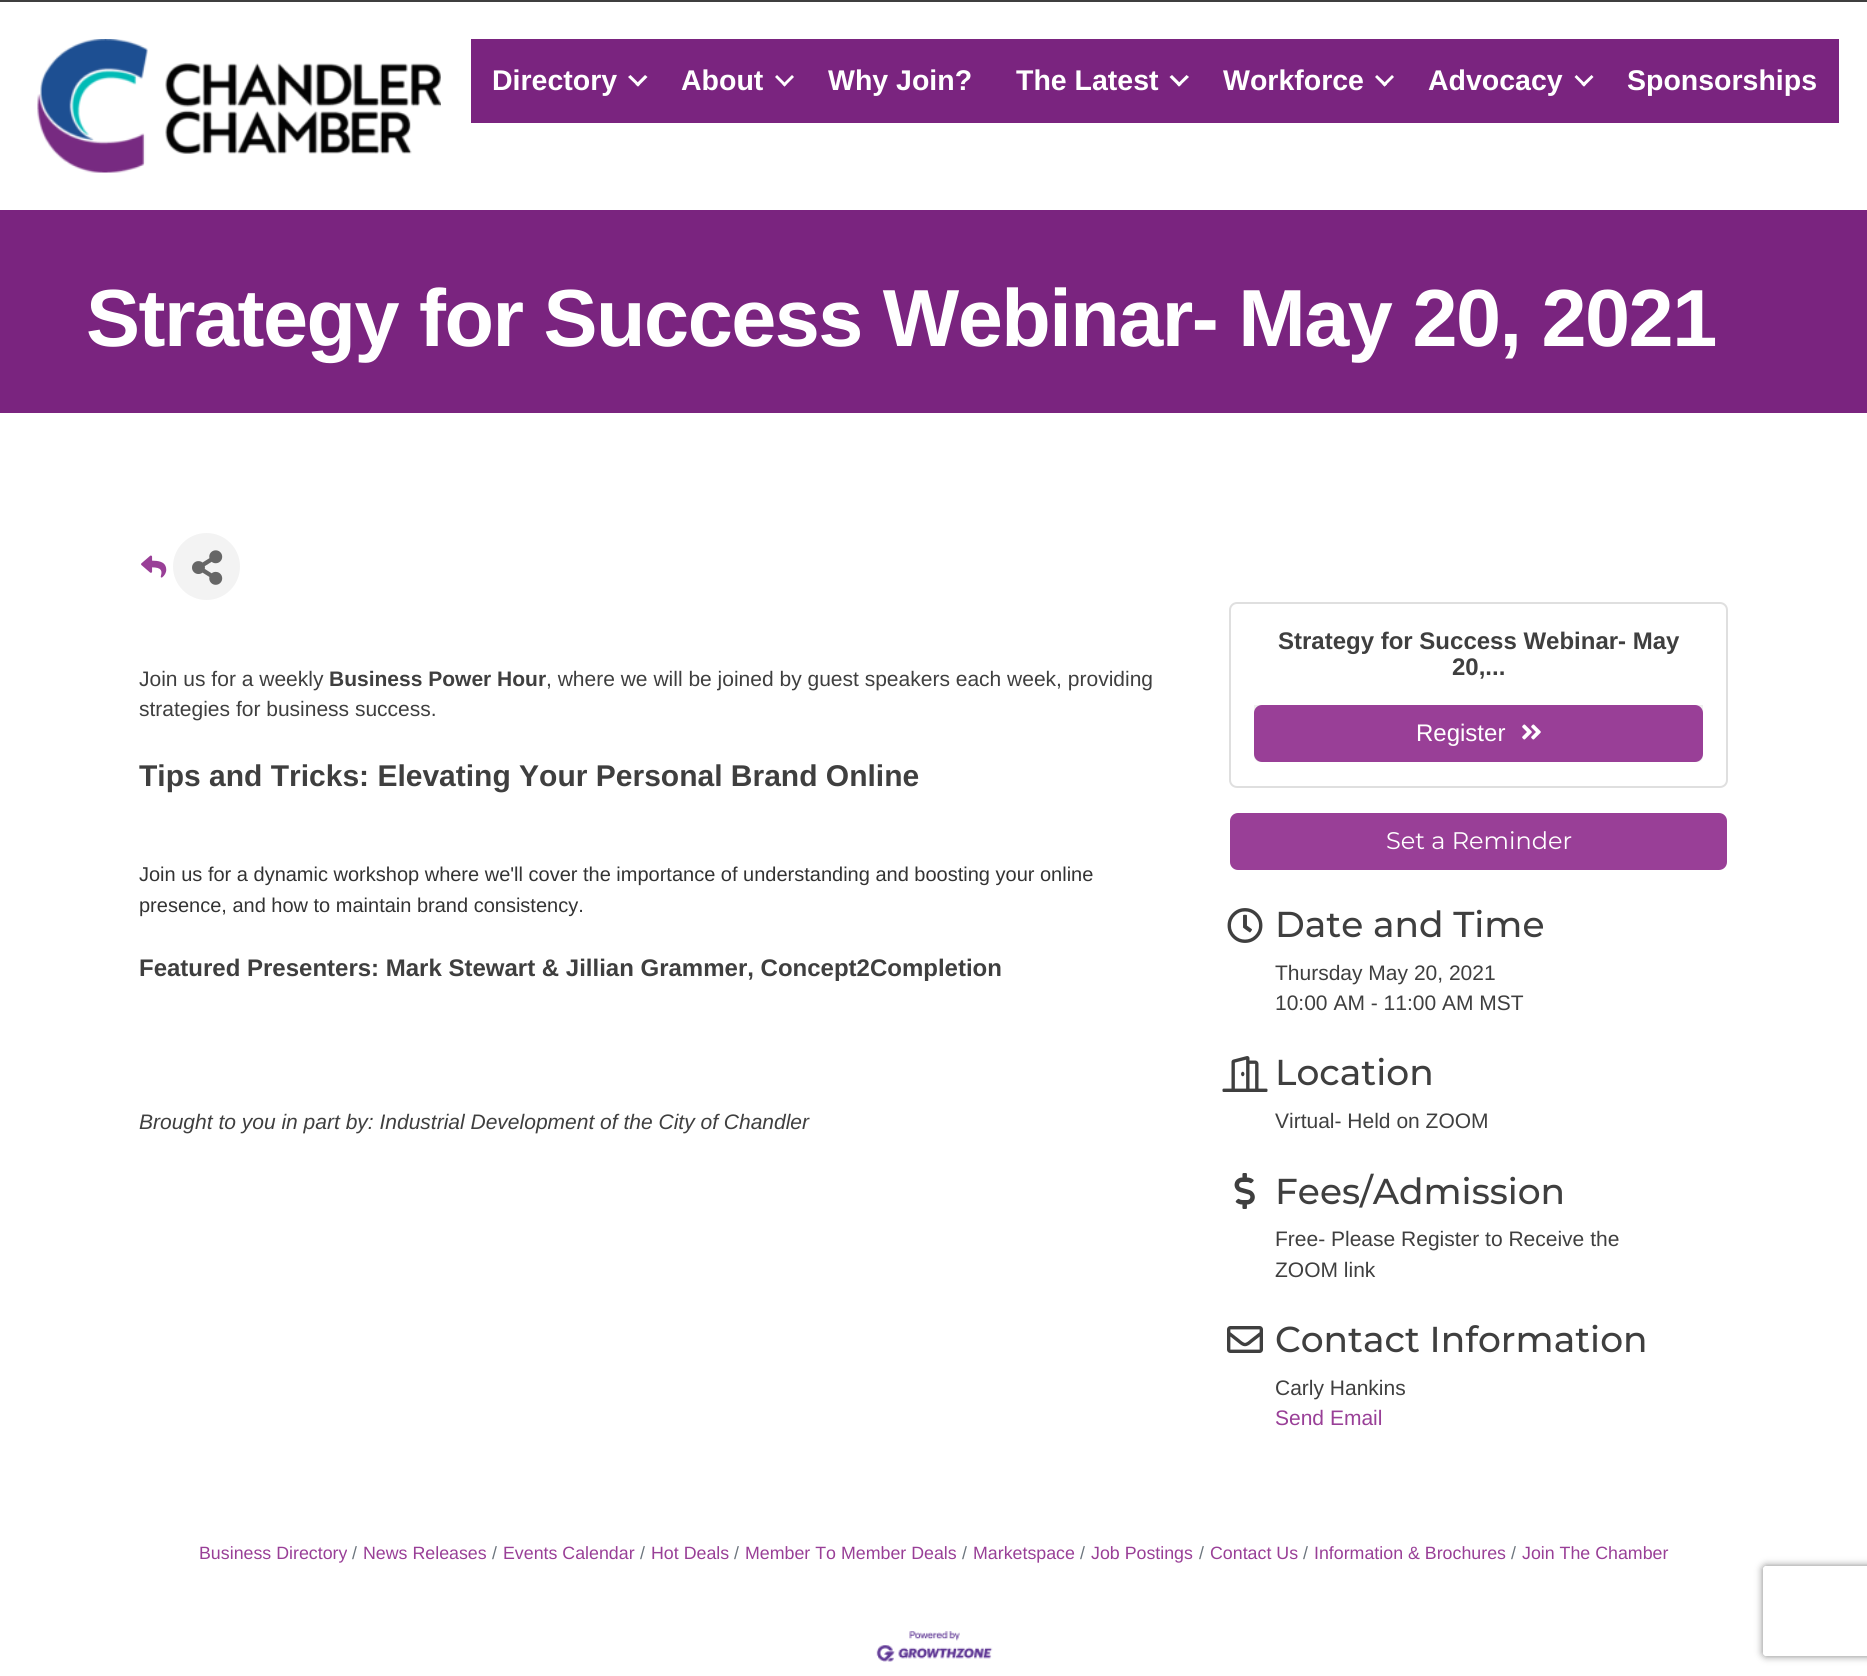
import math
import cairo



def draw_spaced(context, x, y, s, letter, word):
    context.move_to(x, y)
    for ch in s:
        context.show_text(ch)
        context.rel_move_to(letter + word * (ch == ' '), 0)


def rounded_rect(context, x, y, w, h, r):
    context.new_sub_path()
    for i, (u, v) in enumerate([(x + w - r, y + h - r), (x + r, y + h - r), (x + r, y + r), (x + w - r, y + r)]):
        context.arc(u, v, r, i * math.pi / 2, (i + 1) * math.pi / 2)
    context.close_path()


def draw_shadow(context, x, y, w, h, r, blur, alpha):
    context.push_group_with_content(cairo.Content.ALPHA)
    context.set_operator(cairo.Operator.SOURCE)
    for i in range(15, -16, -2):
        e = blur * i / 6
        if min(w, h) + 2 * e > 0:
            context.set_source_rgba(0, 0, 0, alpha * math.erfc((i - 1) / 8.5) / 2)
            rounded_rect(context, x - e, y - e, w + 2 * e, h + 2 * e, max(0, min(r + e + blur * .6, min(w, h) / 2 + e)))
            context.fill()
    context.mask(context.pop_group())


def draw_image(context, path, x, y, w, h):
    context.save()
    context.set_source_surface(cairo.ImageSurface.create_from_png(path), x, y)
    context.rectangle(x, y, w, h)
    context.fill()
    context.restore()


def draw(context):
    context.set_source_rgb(1, 1, 1)
    context.paint()
    context.set_source_rgb(63 / 255, 63 / 255, 63 / 255)
    context.rectangle(0, 0, 1867, 2)
    context.fill()
    draw_image(context, "images/1.png", 37, 39, 404, 134)
    context.set_source_rgb(122 / 255, 36 / 255, 127 / 255)
    context.rectangle(471, 39, 1368, 84)
    context.fill()
    context.set_source_rgb(1, 1, 1)
    context.new_path()
    context.move_to(645, 75)
    context.line_to(647.5, 77)
    context.line_to(638, 86.5)
    context.line_to(635.5, 84.5)
    context.close_path()
    context.fill()
    context.new_path()
    context.move_to(630.5, 75)
    context.line_to(640, 84.5)
    context.line_to(638, 86.5)
    context.line_to(628, 77)
    context.close_path()
    context.fill()
    context.new_path()
    context.move_to(792, 75)
    context.line_to(794, 77)
    context.line_to(784.5, 86.5)
    context.line_to(782.5, 84.5)
    context.close_path()
    context.fill()
    context.new_path()
    context.move_to(777, 75)
    context.line_to(786.5, 84.5)
    context.line_to(784.5, 86.5)
    context.line_to(775, 77)
    context.close_path()
    context.fill()
    context.new_path()
    context.move_to(1186.5, 75)
    context.line_to(1189, 77)
    context.line_to(1179, 86.5)
    context.line_to(1177, 84.5)
    context.close_path()
    context.fill()
    context.new_path()
    context.move_to(1172, 75)
    context.line_to(1181.5, 84.5)
    context.line_to(1179, 86.5)
    context.line_to(1169.5, 77)
    context.close_path()
    context.fill()
    context.new_path()
    context.move_to(1392, 75)
    context.line_to(1394, 77)
    context.line_to(1384.5, 86.5)
    context.line_to(1382.5, 84.5)
    context.close_path()
    context.fill()
    context.new_path()
    context.move_to(1377, 75)
    context.line_to(1387, 84.5)
    context.line_to(1384.5, 86.5)
    context.line_to(1375, 77)
    context.close_path()
    context.fill()
    context.new_path()
    context.move_to(1591.5, 75)
    context.line_to(1593.5, 77)
    context.line_to(1584, 86.5)
    context.line_to(1581.5, 84.5)
    context.close_path()
    context.fill()
    context.new_path()
    context.move_to(1576.5, 75)
    context.line_to(1586, 84.5)
    context.line_to(1584, 86.5)
    context.line_to(1574.5, 77)
    context.close_path()
    context.fill()
    context.set_source_rgb(122 / 255, 36 / 255, 127 / 255)
    context.rectangle(0, 210, 1867, 203)
    context.fill()
    draw_image(context, "images/2.png", 141, 555, 26, 23)
    context.set_source_rgb(243 / 255, 243 / 255, 243 / 255)
    context.arc(206.5, 566.5, 33.5, 0, 2 * math.pi)
    context.fill()
    draw_image(context, "images/3.png", 192, 550, 31, 35)
    rounded_rect(context, 1230, 603, 497, 184, 7)
    context.set_source_rgb(223 / 255, 223 / 255, 223 / 255)
    context.stroke()
    context.set_source_rgb(239 / 255, 239 / 255, 239 / 255)
    context.new_path()
    context.move_to(1254, 705)
    context.line_to(1703, 705)
    context.line_to(1703, 756)
    context.curve_to(1703, 759.5, 1700.5, 762, 1697, 762)
    context.line_to(1260, 762)
    context.curve_to(1256.5, 762, 1254, 759.5, 1254, 756)
    context.close_path()
    context.fill()
    context.set_source_rgb(153 / 255, 63 / 255, 151 / 255)
    rounded_rect(context, 1255, 706, 447, 55, 7)
    context.fill_preserve()
    context.stroke()
    draw_image(context, "images/4.png", 1522, 724, 19, 16)
    rounded_rect(context, 1231, 814, 495, 55, 7)
    context.fill_preserve()
    context.stroke()
    draw_image(context, "images/5.png", 1227, 908, 36, 35)
    draw_image(context, "images/6.png", 1222, 1056, 46, 36)
    draw_image(context, "images/7.png", 1234, 1173, 21, 36)
    draw_image(context, "images/8.png", 1227, 1326, 36, 27)
    draw_image(context, "images/9.png", 876, 1631, 117, 31)
    context.save()
    context.set_fill_rule(cairo.FillRule.EVEN_ODD)
    context.new_path()
    context.move_to(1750, 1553)
    context.line_to(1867, 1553)
    context.line_to(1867, 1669)
    context.line_to(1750, 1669)
    context.close_path()
    context.move_to(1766, 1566)
    context.line_to(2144, 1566)
    context.curve_to(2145.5, 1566, 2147, 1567.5, 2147, 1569)
    context.line_to(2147, 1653)
    context.curve_to(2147, 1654.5, 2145.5, 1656, 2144, 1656)
    context.line_to(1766, 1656)
    context.curve_to(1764.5, 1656, 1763, 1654.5, 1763, 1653)
    context.line_to(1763, 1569)
    context.curve_to(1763, 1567.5, 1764.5, 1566, 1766, 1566)
    context.close_path()
    context.clip()
    context.set_source_rgb(128 / 255, 128 / 255, 128 / 255)
    draw_shadow(context, 1763, 1566, 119, 90, 3, 4, 1)
    context.restore()
    context.select_font_face("Liberation Sans", cairo.FontSlant.NORMAL, cairo.FontWeight.BOLD)
    context.set_font_size(28.5)
    context.set_source_rgb(1, 1, 1)
    context.move_to(492, 90)
    context.show_text("Directory")
    context.move_to(681, 90)
    context.show_text("About")
    context.move_to(828, 90)
    context.show_text("Why Join?")
    context.move_to(1016, 90)
    context.show_text("The Latest")
    context.move_to(1223, 90)
    context.show_text("Workforce")
    context.move_to(1428, 90)
    context.show_text("Advocacy")
    context.move_to(1627, 90)
    context.show_text("Sponsorships")
    context.set_font_size(81)
    draw_spaced(context, 86, 346, "Strategy for Success Webinar- May 20, 2021", -1.5, 0)
    context.select_font_face("Liberation Sans")
    context.set_font_size(21)
    context.set_source_rgb(63 / 255, 63 / 255, 63 / 255)
    context.move_to(139, 686)
    context.show_text("Join us for a weekly")
    context.select_font_face("Liberation Sans", cairo.FontSlant.NORMAL, cairo.FontWeight.BOLD)
    context.move_to(329, 686)
    context.show_text("Business Power Hour")
    context.select_font_face("Liberation Sans")
    context.move_to(546, 686)
    context.show_text(", where we will be joined by guest speakers each week, providing")
    context.move_to(139, 716)
    context.show_text("strategies for business success.")
    context.select_font_face("Liberation Sans", cairo.FontSlant.NORMAL, cairo.FontWeight.BOLD)
    context.set_font_size(30)
    context.move_to(139, 786)
    context.show_text("Tips and Tricks: Elevating Your Personal Brand Online")
    context.select_font_face("Liberation Sans")
    context.set_font_size(20)
    context.set_source_rgb(51 / 255, 51 / 255, 51 / 255)
    context.move_to(139, 881)
    context.show_text("Join us for a dynamic workshop where we'll cover the importance of understanding and boosting your online")
    context.move_to(139, 912)
    context.show_text("presence, and how to maintain brand consistency.")
    context.select_font_face("Liberation Sans", cairo.FontSlant.NORMAL, cairo.FontWeight.BOLD)
    context.set_font_size(24)
    context.set_source_rgb(63 / 255, 63 / 255, 63 / 255)
    context.move_to(139, 976)
    context.show_text("Featured Presenters: Mark Stewart & Jillian Grammer, Concept2Completion")
    context.select_font_face("Liberation Sans", cairo.FontSlant.ITALIC)
    context.set_font_size(21)
    context.move_to(139, 1129)
    context.show_text("Brought to you in part by: Industrial Development of the City of Chandler")
    context.select_font_face("Liberation Sans", cairo.FontSlant.NORMAL, cairo.FontWeight.BOLD)
    context.set_font_size(24)
    context.move_to(1278, 649)
    context.show_text("Strategy for Success Webinar- May")
    context.move_to(1452, 675)
    context.show_text("20,...")
    context.select_font_face("Liberation Sans")
    context.set_source_rgb(1, 1, 1)
    context.move_to(1416, 741)
    context.show_text("Register")
    context.select_font_face("Montserrat")
    context.move_to(1386, 849)
    context.show_text("Set a Reminder")
    context.select_font_face("Montserrat Medium")
    context.set_font_size(36)
    context.set_source_rgb(63 / 255, 63 / 255, 63 / 255)
    context.move_to(1275, 937)
    context.show_text("Date and Time")
    context.select_font_face("Liberation Sans")
    context.set_font_size(21)
    context.move_to(1275, 980)
    context.show_text("Thursday May 20, 2021")
    context.move_to(1275, 1010)
    context.show_text("10:00 AM - 11:00 AM MST")
    context.select_font_face("Montserrat Medium")
    context.set_font_size(36)
    context.move_to(1275, 1085)
    context.show_text("Location")
    context.select_font_face("Liberation Sans")
    context.set_font_size(21)
    context.move_to(1275, 1128)
    context.show_text("Virtual- Held on ZOOM")
    context.select_font_face("Montserrat Medium")
    context.set_font_size(36)
    context.move_to(1275, 1204)
    context.show_text("Fees/Admission")
    context.select_font_face("Liberation Sans")
    context.set_font_size(21)
    context.move_to(1275, 1246)
    context.show_text("Free- Please Register to Receive the")
    context.move_to(1275, 1277)
    context.show_text("ZOOM link")
    context.select_font_face("Montserrat Medium")
    context.set_font_size(36)
    context.move_to(1275, 1352)
    context.show_text("Contact Information")
    context.select_font_face("Liberation Sans")
    context.set_font_size(21)
    context.move_to(1275, 1395)
    context.show_text("Carly Hankins")
    context.set_source_rgb(153 / 255, 63 / 255, 151 / 255)
    context.move_to(1275, 1425)
    context.show_text("Send Email")
    context.set_font_size(17.8)
    context.move_to(199, 1559)
    context.show_text("Business Directory")
    context.set_source_rgb(108 / 255, 117 / 255, 125 / 255)
    context.move_to(352, 1559)
    context.show_text("/")
    context.set_source_rgb(153 / 255, 63 / 255, 151 / 255)
    context.move_to(363, 1559)
    context.show_text("News Releases")
    context.set_source_rgb(108 / 255, 117 / 255, 125 / 255)
    context.move_to(492, 1559)
    context.show_text("/")
    context.set_source_rgb(153 / 255, 63 / 255, 151 / 255)
    context.move_to(503, 1559)
    context.show_text("Events Calendar")
    context.set_source_rgb(108 / 255, 117 / 255, 125 / 255)
    context.move_to(640, 1559)
    context.show_text("/")
    context.set_source_rgb(153 / 255, 63 / 255, 151 / 255)
    context.move_to(651, 1559)
    context.show_text("Hot Deals")
    context.set_source_rgb(108 / 255, 117 / 255, 125 / 255)
    context.move_to(734, 1559)
    context.show_text("/")
    context.set_source_rgb(153 / 255, 63 / 255, 151 / 255)
    context.move_to(745, 1559)
    context.show_text("Member To Member Deals")
    context.set_source_rgb(108 / 255, 117 / 255, 125 / 255)
    context.move_to(962, 1559)
    context.show_text("/")
    context.set_source_rgb(153 / 255, 63 / 255, 151 / 255)
    context.move_to(973, 1559)
    context.show_text("Marketspace")
    context.set_source_rgb(108 / 255, 117 / 255, 125 / 255)
    context.move_to(1080, 1559)
    context.show_text("/")
    context.set_source_rgb(153 / 255, 63 / 255, 151 / 255)
    context.move_to(1091, 1559)
    context.show_text("Job Postings")
    context.set_source_rgb(108 / 255, 117 / 255, 125 / 255)
    context.move_to(1199, 1559)
    context.show_text("/")
    context.set_source_rgb(153 / 255, 63 / 255, 151 / 255)
    context.move_to(1210, 1559)
    context.show_text("Contact Us")
    context.set_source_rgb(108 / 255, 117 / 255, 125 / 255)
    context.move_to(1303, 1559)
    context.show_text("/")
    context.set_source_rgb(153 / 255, 63 / 255, 151 / 255)
    context.move_to(1314, 1559)
    context.show_text("Information & Brochures")
    context.set_source_rgb(108 / 255, 117 / 255, 125 / 255)
    context.move_to(1511, 1559)
    context.show_text("/")
    context.set_source_rgb(153 / 255, 63 / 255, 151 / 255)
    context.move_to(1522, 1559)
    context.show_text("Join The Chamber")


surface = cairo.ImageSurface(cairo.Format.RGB24, 1867, 1676)
context = cairo.Context(surface)
options = cairo.FontOptions()
options.set_hint_metrics(cairo.HintMetrics.OFF)
options.set_hint_style(cairo.HintStyle.NONE)
context.set_font_options(options)
context.set_miter_limit(4)
draw(context)
surface.write_to_png("out.png")
